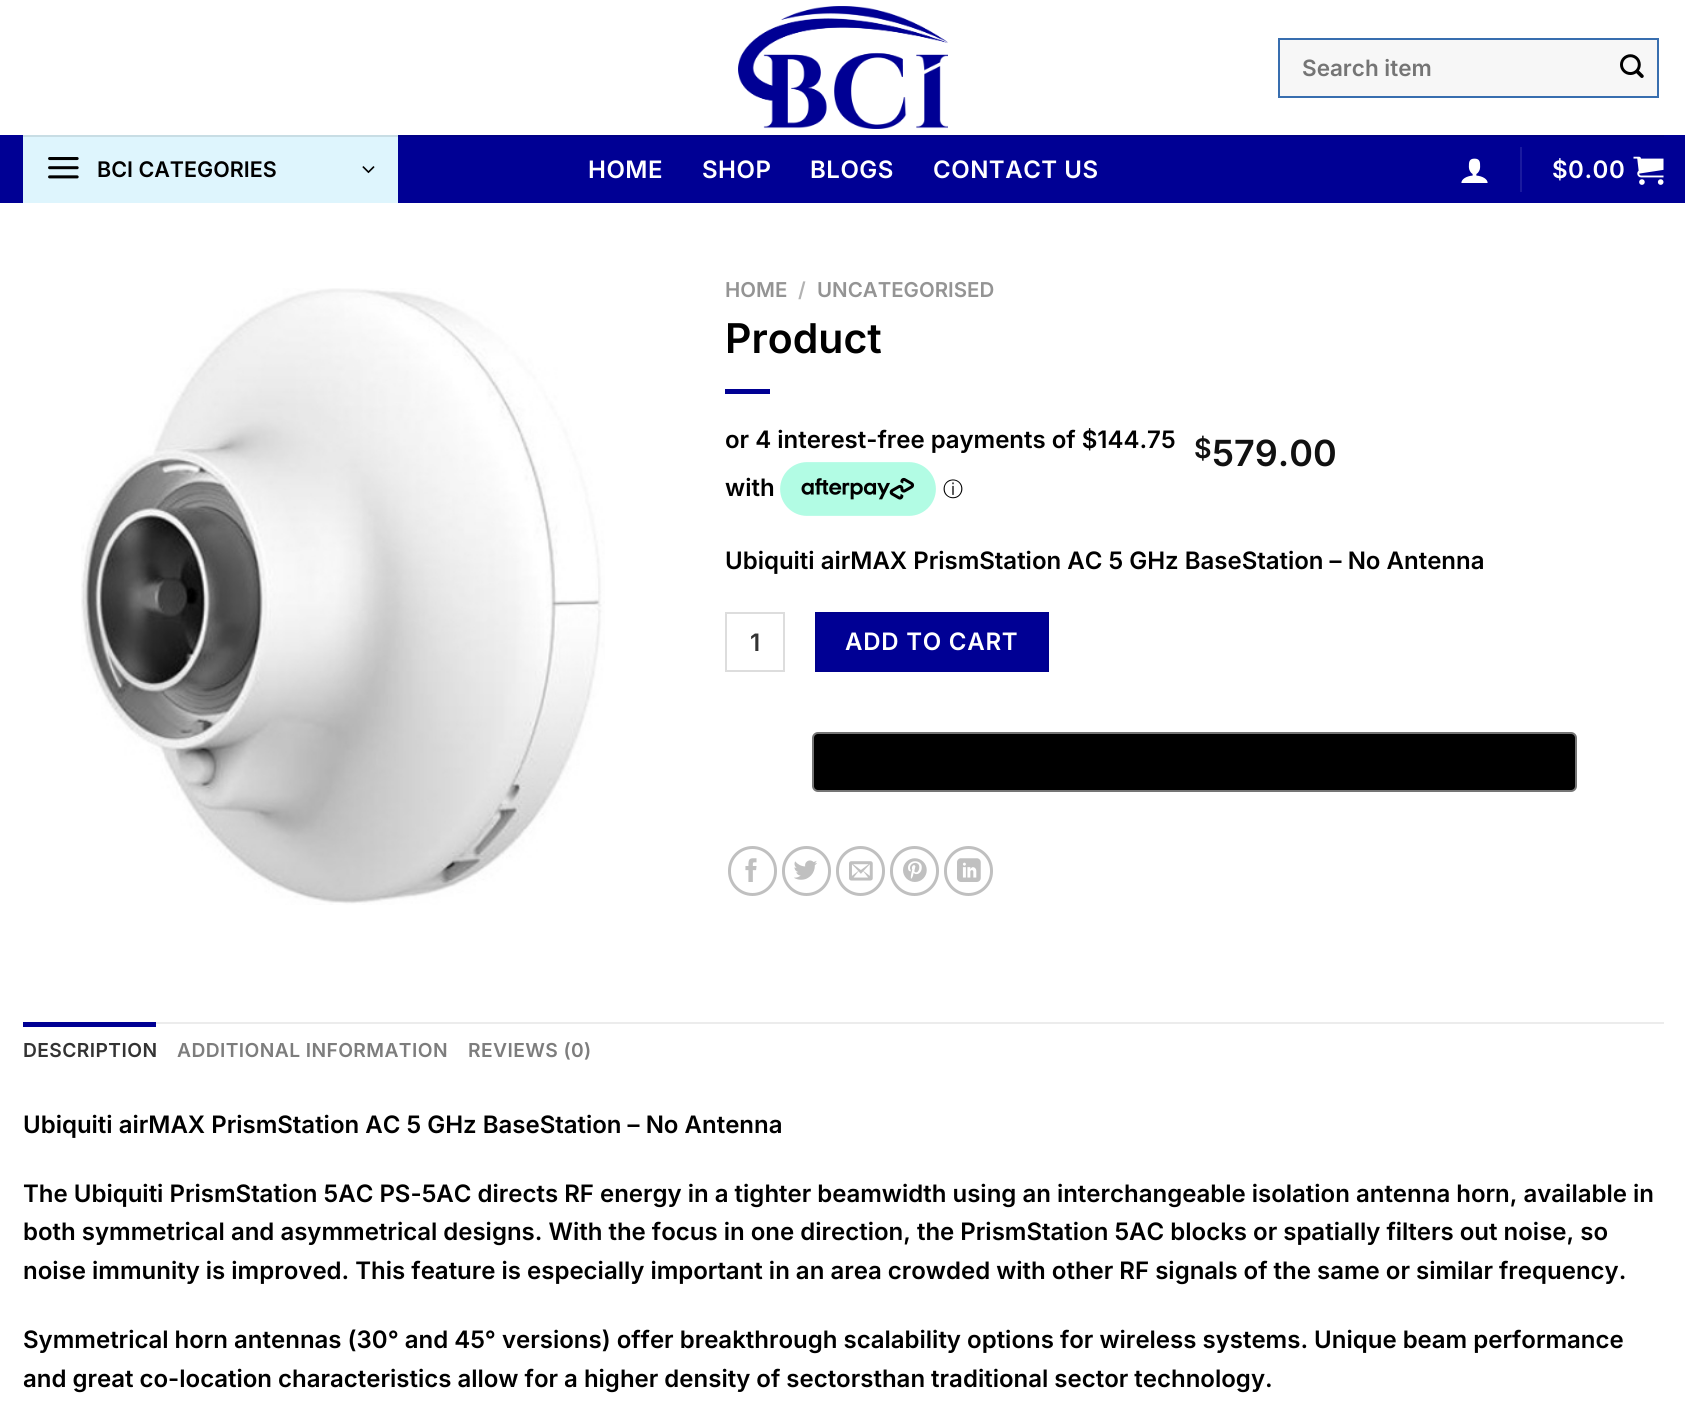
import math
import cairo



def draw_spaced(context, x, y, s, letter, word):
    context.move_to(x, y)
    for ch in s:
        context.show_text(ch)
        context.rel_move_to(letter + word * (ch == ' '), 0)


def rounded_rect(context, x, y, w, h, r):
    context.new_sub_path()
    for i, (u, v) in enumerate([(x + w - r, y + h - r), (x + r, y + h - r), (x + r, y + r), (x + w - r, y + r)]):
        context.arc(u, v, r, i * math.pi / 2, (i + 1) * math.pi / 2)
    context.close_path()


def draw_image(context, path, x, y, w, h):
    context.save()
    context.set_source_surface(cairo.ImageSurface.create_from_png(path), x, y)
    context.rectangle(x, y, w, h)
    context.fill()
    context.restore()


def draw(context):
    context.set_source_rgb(1, 1, 1)
    context.paint()
    draw_image(context, "images/1.png", 738, 6, 210, 123)
    context.set_source_rgb(247 / 255, 247 / 255, 247 / 255)
    context.rectangle(1279, 39, 379, 58)
    context.fill_preserve()
    context.set_source_rgb(56 / 255, 110 / 255, 175 / 255)
    context.stroke()
    draw_image(context, "images/2.png", 1620, 54, 24, 24)
    context.set_source_rgb(0, 0, 148 / 255)
    context.rectangle(0, 135, 1685, 68)
    context.fill()
    context.set_source_rgb(0, 0, 133 / 255)
    context.rectangle(398, 135, 1266, 2)
    context.fill()
    context.set_source_rgb(222 / 255, 245 / 255, 253 / 255)
    context.rectangle(23, 137, 375, 66)
    context.fill()
    context.set_source_rgb(200 / 255, 221 / 255, 228 / 255)
    context.rectangle(23, 135, 375, 2)
    context.fill()
    draw_image(context, "images/3.png", 48, 157, 31, 22)
    draw_image(context, "images/4.png", 362, 166, 13, 8)
    draw_image(context, "images/5.png", 1461, 158, 27, 25)
    context.set_source_rgb(26 / 255, 26 / 255, 159 / 255)
    context.rectangle(1520, 147, 2, 45)
    context.fill()
    draw_image(context, "images/6.png", 1633, 156, 31, 29)
    draw_image(context, "images/7.png", 81, 288, 524, 617)
    context.set_source_rgb(0, 0, 148 / 255)
    context.rectangle(725, 389, 45, 5)
    context.fill()
    draw_image(context, "images/8.png", 780, 462, 156, 54)
    context.rectangle(726, 613, 58, 58)
    context.set_source_rgb(221 / 255, 221 / 255, 221 / 255)
    context.stroke()
    context.set_source_rgb(0, 0, 148 / 255)
    context.rectangle(816, 613, 232, 58)
    context.fill_preserve()
    context.set_source_rgb(0, 0, 141 / 255)
    context.stroke()
    context.set_source_rgb(0, 0, 0)
    rounded_rect(context, 813, 733, 763, 58, 5)
    context.fill_preserve()
    context.set_source_rgb(117 / 255, 117 / 255, 117 / 255)
    context.stroke()
    rounded_rect(context, 729.5, 847.5, 46, 47, 23)
    context.set_source_rgb(192 / 255, 192 / 255, 192 / 255)
    context.set_line_width(3)
    context.stroke()
    draw_image(context, "images/9.png", 745, 858, 12, 24)
    rounded_rect(context, 783.5, 847.5, 46, 47, 23)
    context.stroke()
    draw_image(context, "images/10.png", 794, 860, 23, 20)
    rounded_rect(context, 837.5, 847.5, 46, 47, 23)
    context.stroke()
    draw_image(context, "images/11.png", 849, 861, 24, 20)
    rounded_rect(context, 891.5, 847.5, 46, 47, 23)
    context.stroke()
    draw_image(context, "images/12.png", 903, 858, 24, 24)
    rounded_rect(context, 945.5, 847.5, 46, 47, 23)
    context.stroke()
    draw_image(context, "images/13.png", 957, 858, 24, 24)
    context.set_source_rgb(236 / 255, 236 / 255, 236 / 255)
    context.rectangle(156, 1022, 1508, 2)
    context.fill()
    context.set_source_rgb(0, 0, 148 / 255)
    context.rectangle(23, 1022, 133, 5)
    context.fill()
    context.select_font_face("Inter SemiBold")
    context.set_font_size(22.5)
    context.set_source_rgb(117 / 255, 117 / 255, 117 / 255)
    context.move_to(1302, 76)
    context.show_text("Search item")
    context.set_font_size(21.5)
    context.set_source_rgb(0, 0, 0)
    context.move_to(97, 177)
    context.show_text("BCI CATEGORIES")
    context.set_font_size(24)
    context.set_source_rgb(1, 1, 1)
    draw_spaced(context, 588, 178, "HOME", 0.5, 0)
    draw_spaced(context, 702, 178, "SHOP", 0.5, 0)
    draw_spaced(context, 810, 178, "BLOGS", 0.5, 0)
    draw_spaced(context, 933, 178, "CONTACT US", 0.5, 0)
    draw_spaced(context, 1552, 178, "$0.00", 0.5, 0)
    context.set_font_size(20.5)
    context.set_source_rgb(148 / 255, 148 / 255, 148 / 255)
    context.move_to(725, 297)
    context.show_text("HOME")
    context.set_source_rgb(178 / 255, 178 / 255, 178 / 255)
    context.move_to(798, 297)
    context.show_text("/")
    context.set_source_rgb(148 / 255, 148 / 255, 148 / 255)
    context.move_to(817, 297)
    context.show_text("UNCATEGORISED")
    context.set_font_size(41)
    context.set_source_rgb(0, 0, 0)
    context.move_to(725, 353)
    context.show_text("Product")
    context.set_font_size(24)
    context.move_to(725, 448)
    context.show_text("or 4 interest-free payments of $144.75")
    context.move_to(725, 496)
    context.show_text("with")
    context.select_font_face("WenQuanYi Zen Hei Medium")
    context.set_font_size(20)
    context.move_to(943, 496)
    context.show_text("ⓘ")
    context.select_font_face("Inter SemiBold")
    context.set_font_size(27)
    context.set_source_rgb(17 / 255, 17 / 255, 17 / 255)
    context.move_to(1194, 458)
    context.show_text("$")
    context.set_font_size(36)
    context.move_to(1212, 466)
    context.show_text("579.00")
    context.set_font_size(24)
    context.set_source_rgb(0, 0, 0)
    context.move_to(725, 569)
    context.show_text("Ubiquiti airMAX PrismStation AC 5 GHz BaseStation – No Antenna")
    context.set_source_rgb(51 / 255, 51 / 255, 51 / 255)
    context.move_to(750, 651)
    context.show_text("1")
    context.set_source_rgb(1, 1, 1)
    draw_spaced(context, 845, 650, "ADD TO CART", 0.75, 0)
    context.set_font_size(19.25)
    context.set_source_rgb(51 / 255, 51 / 255, 51 / 255)
    draw_spaced(context, 23, 1057, "DESCRIPTION", 0.4, 0)
    context.set_source_rgb(125 / 255, 125 / 255, 125 / 255)
    draw_spaced(context, 177, 1057, "ADDITIONAL INFORMATION", 0.4, 0)
    draw_spaced(context, 468, 1057, "REVIEWS (0)", 0.4, 0)
    context.set_font_size(24)
    context.set_source_rgb(0, 0, 0)
    context.move_to(23, 1133)
    context.show_text("Ubiquiti airMAX PrismStation AC 5 GHz BaseStation – No Antenna")
    context.move_to(23, 1202)
    context.show_text("The Ubiquiti PrismStation 5AC PS-5AC directs RF energy in a tighter beamwidth using an interchangeable isolation antenna horn, available in")
    context.move_to(23, 1240)
    context.show_text("both symmetrical and asymmetrical designs. With the focus in one direction, the PrismStation 5AC blocks or spatially filters out noise, so")
    context.move_to(23, 1279)
    context.show_text("noise immunity is improved. This feature is especially important in an area crowded with other RF signals of the same or similar frequency.")
    context.move_to(23, 1348)
    context.show_text("Symmetrical horn antennas (30° and 45° versions) offer breakthrough scalability options for wireless systems. Unique beam performance")
    context.move_to(23, 1387)
    context.show_text("and great co-location characteristics allow for a higher density of sectorsthan traditional sector technology.")


surface = cairo.ImageSurface(cairo.Format.RGB24, 1685, 1412)
context = cairo.Context(surface)
options = cairo.FontOptions()
options.set_hint_metrics(cairo.HintMetrics.OFF)
options.set_hint_style(cairo.HintStyle.NONE)
context.set_font_options(options)
context.set_miter_limit(4)
draw(context)
surface.write_to_png("out.png")
